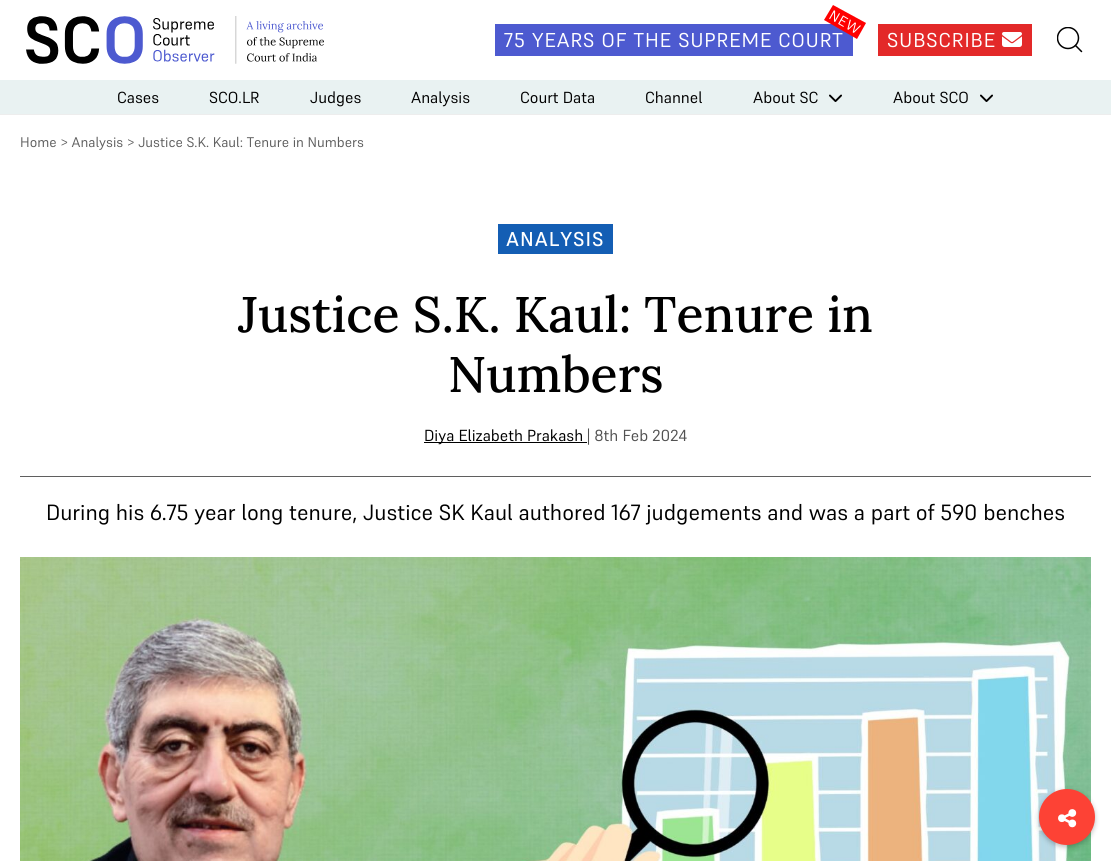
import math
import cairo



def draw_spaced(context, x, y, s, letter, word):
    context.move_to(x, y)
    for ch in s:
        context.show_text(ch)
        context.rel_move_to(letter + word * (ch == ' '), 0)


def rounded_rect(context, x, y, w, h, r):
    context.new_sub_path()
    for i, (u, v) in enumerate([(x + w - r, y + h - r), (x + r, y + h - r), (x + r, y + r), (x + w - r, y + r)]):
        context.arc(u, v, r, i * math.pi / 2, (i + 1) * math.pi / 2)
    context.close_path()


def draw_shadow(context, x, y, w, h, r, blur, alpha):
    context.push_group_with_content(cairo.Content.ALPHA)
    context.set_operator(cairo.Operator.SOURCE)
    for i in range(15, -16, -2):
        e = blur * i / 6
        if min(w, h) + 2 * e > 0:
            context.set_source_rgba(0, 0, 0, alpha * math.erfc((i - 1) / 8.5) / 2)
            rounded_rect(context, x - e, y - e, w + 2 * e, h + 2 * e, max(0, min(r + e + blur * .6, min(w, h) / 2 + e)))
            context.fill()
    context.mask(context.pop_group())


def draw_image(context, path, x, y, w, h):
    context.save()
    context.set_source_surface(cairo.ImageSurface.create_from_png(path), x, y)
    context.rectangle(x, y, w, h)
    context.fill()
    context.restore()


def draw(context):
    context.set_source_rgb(1, 1, 1)
    context.paint()
    context.set_source_rgb(237 / 255, 237 / 255, 237 / 255)
    context.rectangle(0, 114, 1111, 1)
    context.fill()
    draw_image(context, "images/1.png", 26, 16, 298, 48)
    context.set_source_rgb(77 / 255, 90 / 255, 208 / 255)
    context.rectangle(495, 24, 358, 32)
    context.fill()
    context.set_source_rgb(227 / 255, 41 / 255, 41 / 255)
    context.rectangle(878, 24, 154, 32)
    context.fill()
    draw_image(context, "images/2.png", 1002, 32, 20, 15)
    context.save()
    context.rectangle(1057, 27, 26, 26)
    context.clip()
    context.arc(1068, 38, 10.5, 0, 2 * math.pi)
    context.set_source_rgb(0, 0, 0)
    context.set_line_width(1.5)
    context.stroke()
    context.restore()
    context.new_path()
    context.move_to(1075.5, 45.5)
    context.line_to(1081.5, 51.5)
    context.set_source_rgb(0, 0, 0)
    context.set_line_width(1.5)
    context.set_line_cap(cairo.LineCap.ROUND)
    context.stroke()
    context.set_source_rgb(233 / 255, 242 / 255, 242 / 255)
    context.rectangle(0, 80, 1111, 34)
    context.fill()
    draw_image(context, "images/3.png", 829, 94, 13, 8)
    draw_image(context, "images/3.png", 980, 94, 13, 8)
    context.set_source_rgb(20 / 255, 94 / 255, 180 / 255)
    context.rectangle(498, 224, 115, 30)
    context.fill()
    context.set_source_rgb(95 / 255, 95 / 255, 95 / 255)
    context.rectangle(20, 476, 1071, 1)
    context.fill()
    context.set_source_rgb(0, 0, 0)
    context.rectangle(424, 442, 163, 1)
    context.fill()
    draw_image(context, "images/4.png", 20, 557, 1071, 304)
    context.set_source_rgb(0, 0, 0)
    draw_shadow(context, 1039, 791, 56, 56, 28, 2.5, 0.26)
    context.set_source_rgb(253 / 255, 66 / 255, 53 / 255)
    context.arc(1067, 817, 28, 0, 2 * math.pi)
    context.fill()
    draw_image(context, "images/5.png", 1058, 809, 19, 19)
    context.select_font_face("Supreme")
    context.set_font_size(20)
    context.set_source_rgb(1, 1, 1)
    draw_spaced(context, 504, 47, "75 YEARS OF THE SUPREME COURT", 1, 0)
    context.set_source_rgb(1, 0, 0)
    context.new_path()
    context.move_to(833, 5)
    context.line_to(866, 23)
    context.line_to(857, 39)
    context.line_to(824, 20)
    context.close_path()
    context.fill()
    context.set_font_size(14)
    context.set_source_rgb(1, 1, 1)
    context.save()
    context.translate(828, 18)
    context.rotate(30 * math.pi / 180)
    draw_spaced(context, 0, 0, "NEW", 1, 0)
    context.restore()
    context.set_font_size(20)
    draw_spaced(context, 887, 47, "SUBSCRIBE", 1, 0)
    context.set_font_size(16)
    context.set_source_rgb(0, 0, 0)
    context.move_to(117, 103)
    context.show_text("Cases")
    context.move_to(209, 103)
    context.show_text("SCO.LR")
    context.move_to(310, 103)
    context.show_text("Judges")
    context.move_to(411, 103)
    context.show_text("Analysis")
    context.move_to(520, 103)
    context.show_text("Court Data")
    context.move_to(645, 103)
    context.show_text("Channel")
    context.move_to(753, 103)
    context.show_text("About SC")
    context.move_to(893, 103)
    context.show_text("About SCO")
    context.set_font_size(14)
    context.set_source_rgb(95 / 255, 95 / 255, 95 / 255)
    context.move_to(20, 147)
    context.show_text("Home > Analysis > Justice S.K. Kaul: Tenure in Numbers")
    context.select_font_face("Supreme Medium")
    context.set_font_size(20)
    context.set_source_rgb(1, 1, 1)
    draw_spaced(context, 506, 246, "ANALYSIS", 1, 0)
    context.select_font_face("Lora Medium")
    context.set_font_size(50)
    context.set_source_rgb(0, 0, 0)
    context.move_to(238, 332)
    context.show_text("Justice S.K. Kaul: Tenure in")
    context.move_to(448, 392)
    context.show_text("Numbers")
    context.select_font_face("Supreme")
    context.set_font_size(16)
    context.move_to(424, 441)
    context.show_text("Diya Elizabeth Prakash")
    context.set_source_rgb(82 / 255, 82 / 255, 82 / 255)
    context.move_to(587, 441)
    context.show_text("| 8th Feb 2024")
    context.set_font_size(22)
    context.set_source_rgb(0, 0, 0)
    context.move_to(46, 520)
    context.show_text("During his 6.75 year long tenure, Justice SK Kaul authored 167 judgements and was a part of 590 benches")


surface = cairo.ImageSurface(cairo.Format.RGB24, 1111, 861)
context = cairo.Context(surface)
options = cairo.FontOptions()
options.set_hint_metrics(cairo.HintMetrics.OFF)
options.set_hint_style(cairo.HintStyle.NONE)
context.set_font_options(options)
context.set_miter_limit(4)
draw(context)
surface.write_to_png("out.png")
